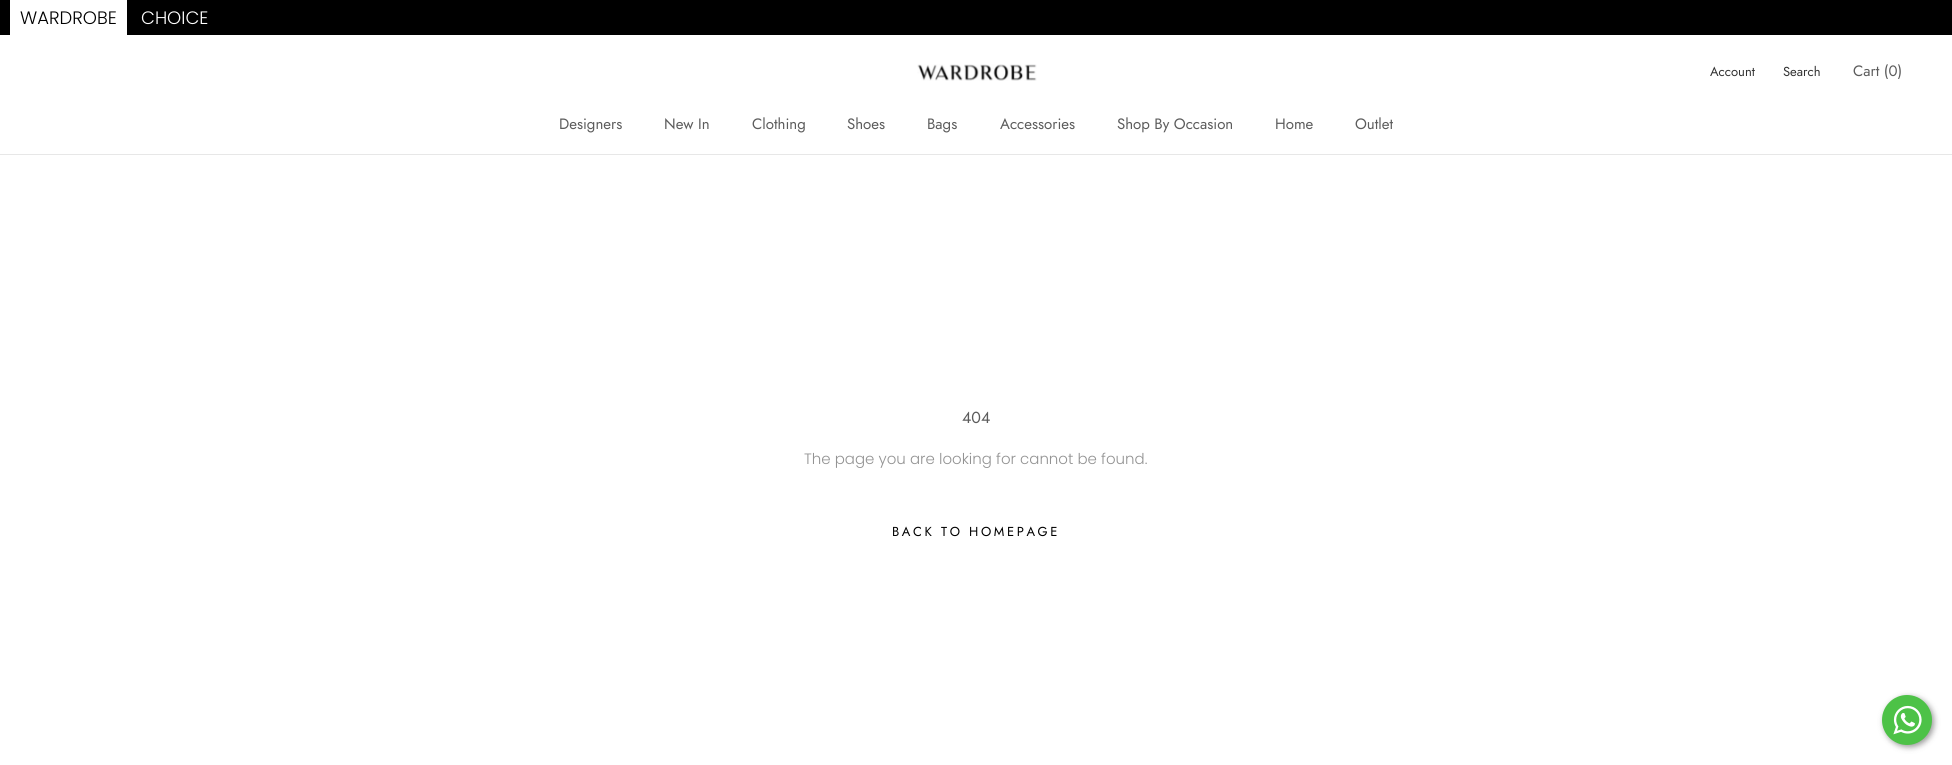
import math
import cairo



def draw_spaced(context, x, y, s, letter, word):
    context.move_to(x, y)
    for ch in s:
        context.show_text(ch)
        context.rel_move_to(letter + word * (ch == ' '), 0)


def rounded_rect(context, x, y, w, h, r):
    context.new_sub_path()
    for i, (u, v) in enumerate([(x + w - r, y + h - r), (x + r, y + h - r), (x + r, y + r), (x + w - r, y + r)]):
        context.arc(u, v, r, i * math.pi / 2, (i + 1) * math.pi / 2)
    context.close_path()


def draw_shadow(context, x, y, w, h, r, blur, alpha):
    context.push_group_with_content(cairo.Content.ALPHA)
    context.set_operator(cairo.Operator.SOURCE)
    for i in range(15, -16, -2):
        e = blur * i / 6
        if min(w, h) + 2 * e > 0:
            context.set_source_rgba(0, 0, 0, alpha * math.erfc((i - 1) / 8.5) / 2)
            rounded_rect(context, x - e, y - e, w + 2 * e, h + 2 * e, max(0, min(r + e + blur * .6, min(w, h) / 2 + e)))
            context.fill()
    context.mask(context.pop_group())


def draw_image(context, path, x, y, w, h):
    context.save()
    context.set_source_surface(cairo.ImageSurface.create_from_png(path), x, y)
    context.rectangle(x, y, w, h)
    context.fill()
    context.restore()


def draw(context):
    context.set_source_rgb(1, 1, 1)
    context.paint()
    context.set_source_rgb(0, 0, 0)
    context.rectangle(0, 0, 1952, 35)
    context.fill()
    context.set_source_rgb(1, 1, 1)
    context.rectangle(10, 0, 117, 35)
    context.fill()
    context.set_source_rgb(231 / 255, 231 / 255, 231 / 255)
    context.rectangle(0, 154, 1952, 1)
    context.fill()
    draw_image(context, "images/1.png", 917, 64, 120, 17)
    context.set_source_rgb(0, 0, 0)
    draw_shadow(context, 1884, 697, 50, 50, 25, 3, 0.4)
    context.set_source_rgb(77 / 255, 194 / 255, 71 / 255)
    context.arc(1907, 720, 25, 0, 2 * math.pi)
    context.fill()
    draw_image(context, "images/2.png", 1893, 705, 29, 30)
    context.select_font_face("Poppins Light")
    context.set_font_size(18)
    context.set_source_rgb(0, 0, 0)
    context.move_to(20, 24)
    context.show_text("WARDROBE")
    context.set_source_rgb(1, 1, 1)
    context.move_to(141, 24)
    context.show_text("CHOICE")
    context.select_font_face("Jost")
    context.set_font_size(13)
    context.set_source_rgb(50 / 255, 50 / 255, 50 / 255)
    context.move_to(1710, 76)
    context.show_text("Account")
    context.move_to(1783, 76)
    context.show_text("Search")
    context.set_font_size(15)
    context.set_source_rgb(92 / 255, 92 / 255, 92 / 255)
    context.move_to(1853, 76)
    context.show_text("Cart (0)")
    context.move_to(559, 129)
    context.show_text("Designers")
    context.move_to(664, 129)
    context.show_text("New In")
    context.move_to(752, 129)
    context.show_text("Clothing")
    context.move_to(847, 129)
    context.show_text("Shoes")
    context.move_to(927, 129)
    context.show_text("Bags")
    context.move_to(1000, 129)
    context.show_text("Accessories")
    context.move_to(1117, 129)
    context.show_text("Shop By Occasion")
    context.move_to(1275, 129)
    context.show_text("Home")
    context.move_to(1355, 129)
    context.show_text("Outlet")
    context.set_font_size(16)
    context.move_to(962, 423)
    context.show_text("404")
    context.select_font_face("Poppins Light")
    context.set_font_size(15)
    context.set_source_rgb(147 / 255, 147 / 255, 147 / 255)
    context.move_to(804, 464)
    context.show_text("The page you are looking for cannot be found.")
    context.select_font_face("Jost")
    context.set_font_size(13)
    context.set_source_rgb(0, 0, 0)
    draw_spaced(context, 892, 536, "BACK TO HOMEPAGE", 2.6, 0)


surface = cairo.ImageSurface(cairo.Format.RGB24, 1952, 765)
context = cairo.Context(surface)
options = cairo.FontOptions()
options.set_hint_metrics(cairo.HintMetrics.OFF)
options.set_hint_style(cairo.HintStyle.NONE)
context.set_font_options(options)
context.set_miter_limit(4)
draw(context)
surface.write_to_png("out.png")
